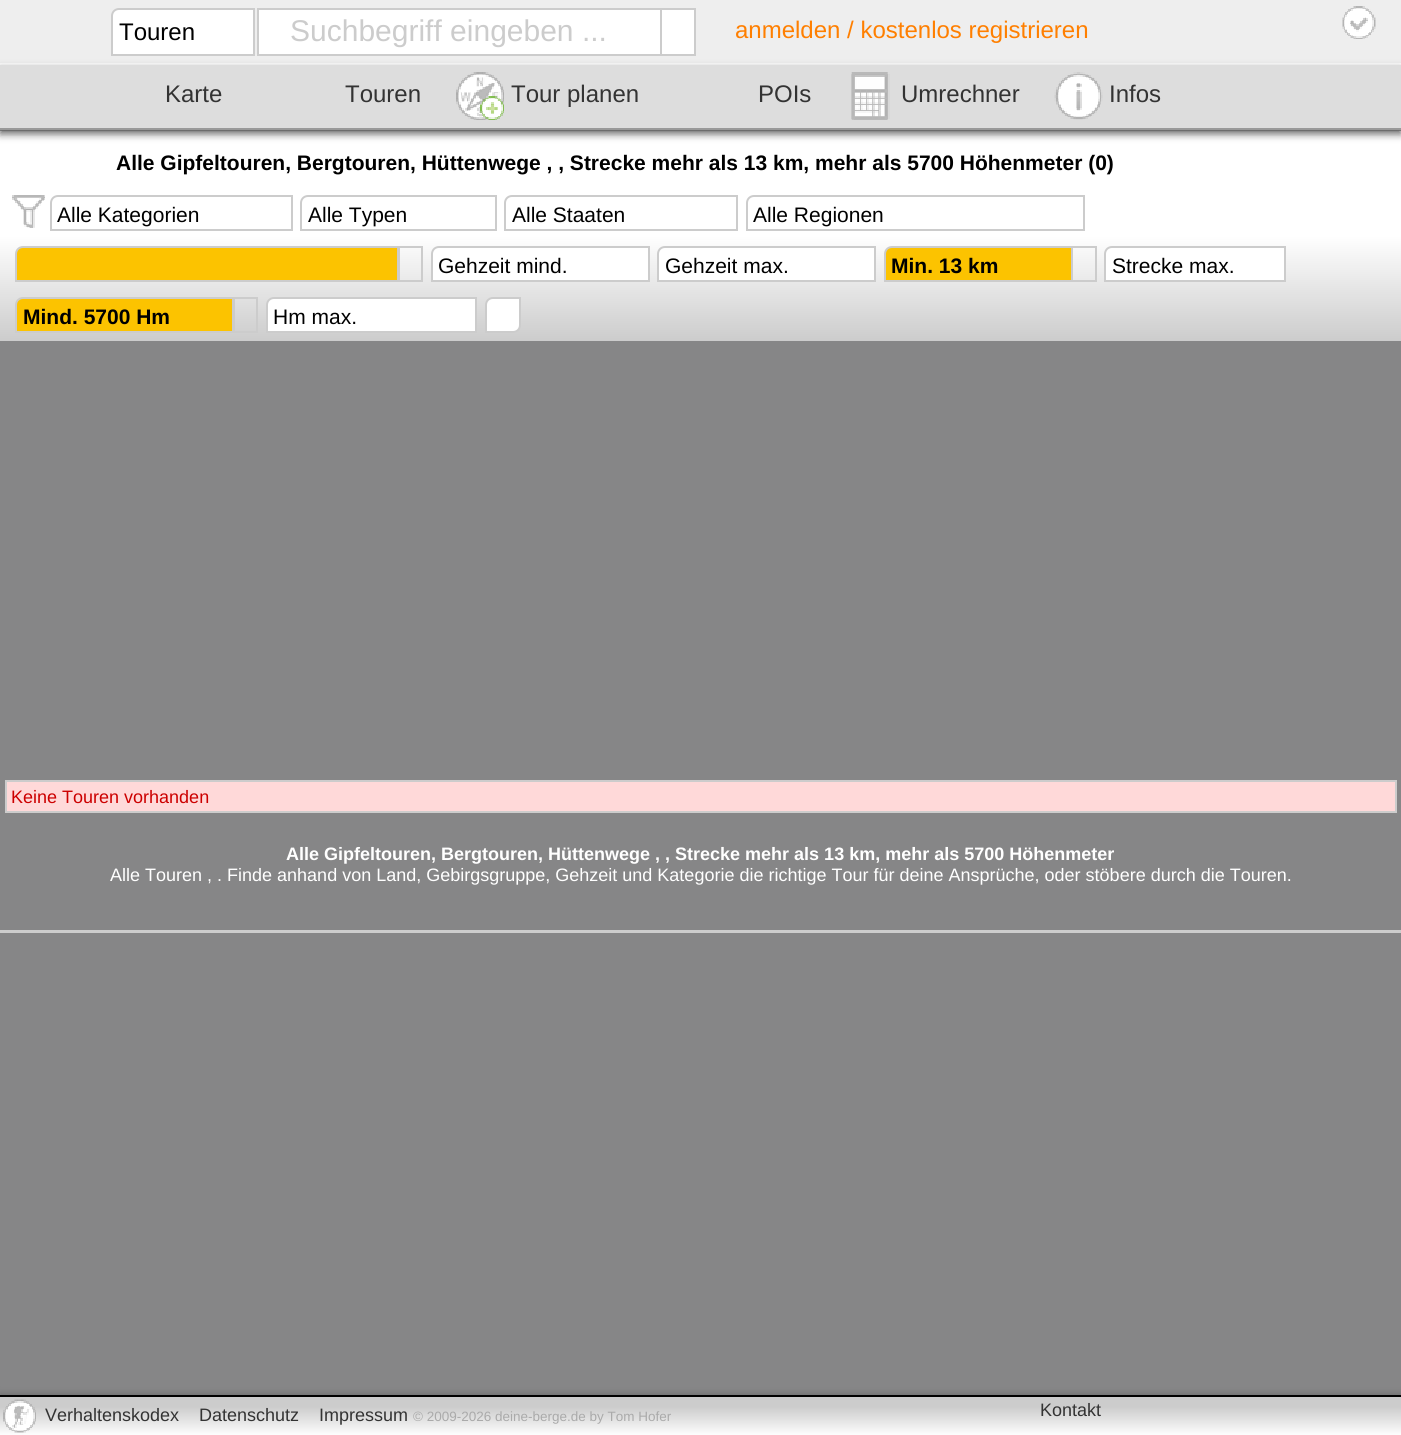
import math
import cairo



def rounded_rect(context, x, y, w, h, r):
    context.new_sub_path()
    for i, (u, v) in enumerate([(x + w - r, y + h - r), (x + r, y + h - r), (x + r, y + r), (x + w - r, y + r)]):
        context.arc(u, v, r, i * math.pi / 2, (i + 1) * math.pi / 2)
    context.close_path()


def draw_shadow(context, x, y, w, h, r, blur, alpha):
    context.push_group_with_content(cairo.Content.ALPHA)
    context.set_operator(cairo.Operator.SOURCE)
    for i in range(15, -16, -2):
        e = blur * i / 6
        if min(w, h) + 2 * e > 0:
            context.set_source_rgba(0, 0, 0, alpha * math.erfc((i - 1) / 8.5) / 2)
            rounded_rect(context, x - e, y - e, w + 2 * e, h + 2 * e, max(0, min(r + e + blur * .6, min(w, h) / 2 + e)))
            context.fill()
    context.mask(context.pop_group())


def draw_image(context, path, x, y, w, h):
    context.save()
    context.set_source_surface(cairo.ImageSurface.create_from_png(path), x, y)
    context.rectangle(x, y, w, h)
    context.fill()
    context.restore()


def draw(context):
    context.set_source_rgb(134 / 255, 134 / 255, 135 / 255)
    context.paint()
    context.set_source_rgb(238 / 255, 238 / 255, 238 / 255)
    context.rectangle(0, 0, 1401, 63)
    context.fill()
    context.set_source_rgb(1, 1, 1)
    context.rectangle(0, 63, 1401, 2)
    context.fill()
    context.new_path()
    context.move_to(119, 9)
    context.line_to(254, 9)
    context.line_to(254, 55)
    context.line_to(112, 55)
    context.line_to(112, 16)
    context.curve_to(112, 12, 115, 9, 119, 9)
    context.close_path()
    context.fill_preserve()
    context.set_source_rgb(204 / 255, 204 / 255, 204 / 255)
    context.stroke()
    context.set_source_rgb(1, 1, 1)
    context.rectangle(259, 10, 401, 44)
    context.fill()
    context.rectangle(258, 9, 437, 46)
    context.set_source_rgb(204 / 255, 204 / 255, 204 / 255)
    context.stroke()
    context.set_source_rgb(1, 1, 1)
    context.rectangle(661, 9, 34, 46)
    context.fill_preserve()
    context.set_source_rgb(204 / 255, 204 / 255, 204 / 255)
    context.stroke()
    draw_image(context, "images/1.png", 1342, 6, 34, 33)
    gradient = cairo.LinearGradient(701, 130, 701, 341)
    gradient.add_color_stop_rgba(0.5, 1, 1, 1, 1)
    gradient.add_color_stop_rgba(1, 204 / 255, 204 / 255, 204 / 255, 1)
    context.set_source(gradient)
    context.rectangle(0, 131, 1401, 210)
    context.fill()
    context.set_source_rgb(102 / 255, 102 / 255, 102 / 255)
    draw_shadow(context, 0, 69, 1401, 65, 0, 4, 1)
    context.set_source_rgb(221 / 255, 221 / 255, 221 / 255)
    context.rectangle(0, 65, 1401, 63)
    context.fill()
    context.set_source_rgb(153 / 255, 153 / 255, 153 / 255)
    context.rectangle(0, 128, 1401, 2)
    context.fill()
    draw_image(context, "images/2.png", 456, 72, 48, 48)
    draw_image(context, "images/3.png", 851, 72, 39, 48)
    draw_image(context, "images/4.png", 1054, 72, 49, 48)
    draw_image(context, "images/5.png", 12, 195, 33, 33)
    context.new_path()
    context.move_to(58, 196)
    context.line_to(292, 196)
    context.line_to(292, 230)
    context.line_to(51, 230)
    context.line_to(51, 203)
    context.curve_to(51, 199, 54, 196, 58, 196)
    context.close_path()
    context.set_source_rgb(204 / 255, 204 / 255, 204 / 255)
    context.stroke()
    context.new_path()
    context.move_to(308, 196)
    context.line_to(496, 196)
    context.line_to(496, 230)
    context.line_to(301, 230)
    context.line_to(301, 203)
    context.curve_to(301, 199, 304, 196, 308, 196)
    context.close_path()
    context.stroke()
    context.new_path()
    context.move_to(512, 196)
    context.line_to(737, 196)
    context.line_to(737, 230)
    context.line_to(505, 230)
    context.line_to(505, 203)
    context.curve_to(505, 199, 508, 196, 512, 196)
    context.close_path()
    context.stroke()
    context.new_path()
    context.move_to(754, 196)
    context.line_to(1084, 196)
    context.line_to(1084, 230)
    context.line_to(747, 230)
    context.line_to(747, 203)
    context.curve_to(747, 199, 750, 196, 754, 196)
    context.close_path()
    context.stroke()
    context.set_source_rgb(252 / 255, 195 / 255, 0)
    context.new_path()
    context.move_to(23, 247)
    context.line_to(398, 247)
    context.line_to(398, 281)
    context.line_to(16, 281)
    context.line_to(16, 254)
    context.curve_to(16, 250, 19, 247, 23, 247)
    context.close_path()
    context.fill_preserve()
    context.set_source_rgb(204 / 255, 204 / 255, 204 / 255)
    context.stroke()
    context.rectangle(399, 247, 23, 34)
    context.stroke()
    context.set_source_rgb(1, 1, 1)
    context.new_path()
    context.move_to(439, 247)
    context.line_to(649, 247)
    context.line_to(649, 281)
    context.line_to(432, 281)
    context.line_to(432, 254)
    context.curve_to(432, 250, 435, 247, 439, 247)
    context.close_path()
    context.fill_preserve()
    context.set_source_rgb(204 / 255, 204 / 255, 204 / 255)
    context.stroke()
    context.set_source_rgb(1, 1, 1)
    context.new_path()
    context.move_to(665, 247)
    context.line_to(875, 247)
    context.line_to(875, 281)
    context.line_to(658, 281)
    context.line_to(658, 254)
    context.curve_to(658, 250, 661, 247, 665, 247)
    context.close_path()
    context.fill_preserve()
    context.set_source_rgb(204 / 255, 204 / 255, 204 / 255)
    context.stroke()
    context.set_source_rgb(252 / 255, 195 / 255, 0)
    context.new_path()
    context.move_to(892, 247)
    context.line_to(1072, 247)
    context.line_to(1072, 281)
    context.line_to(885, 281)
    context.line_to(885, 254)
    context.curve_to(885, 250, 888, 247, 892, 247)
    context.close_path()
    context.fill_preserve()
    context.set_source_rgb(204 / 255, 204 / 255, 204 / 255)
    context.stroke()
    context.rectangle(1072, 247, 24, 34)
    context.stroke()
    context.set_source_rgb(1, 1, 1)
    context.new_path()
    context.move_to(1112, 247)
    context.line_to(1285, 247)
    context.line_to(1285, 281)
    context.line_to(1105, 281)
    context.line_to(1105, 254)
    context.curve_to(1105, 250, 1108, 247, 1112, 247)
    context.close_path()
    context.fill_preserve()
    context.set_source_rgb(204 / 255, 204 / 255, 204 / 255)
    context.stroke()
    context.set_source_rgb(252 / 255, 195 / 255, 0)
    context.new_path()
    context.move_to(23, 298)
    context.line_to(233, 298)
    context.line_to(233, 332)
    context.line_to(16, 332)
    context.line_to(16, 305)
    context.curve_to(16, 301, 19, 298, 23, 298)
    context.close_path()
    context.fill_preserve()
    context.set_source_rgb(204 / 255, 204 / 255, 204 / 255)
    context.stroke()
    context.rectangle(234, 298, 23, 34)
    context.stroke()
    context.set_source_rgb(1, 1, 1)
    context.new_path()
    context.move_to(274, 298)
    context.line_to(476, 298)
    context.line_to(476, 332)
    context.line_to(267, 332)
    context.line_to(267, 305)
    context.curve_to(267, 301, 270, 298, 274, 298)
    context.close_path()
    context.fill_preserve()
    context.set_source_rgb(204 / 255, 204 / 255, 204 / 255)
    context.stroke()
    context.set_source_rgb(1, 1, 1)
    context.new_path()
    context.move_to(493, 298)
    context.line_to(520, 298)
    context.line_to(520, 325)
    context.curve_to(520, 329, 517, 332, 513, 332)
    context.line_to(486, 332)
    context.line_to(486, 305)
    context.curve_to(486, 301, 489, 298, 493, 298)
    context.close_path()
    context.fill_preserve()
    context.set_source_rgb(204 / 255, 204 / 255, 204 / 255)
    context.stroke()
    context.set_source_rgb(1, 217 / 255, 217 / 255)
    context.rectangle(6, 781, 1390, 31)
    context.fill_preserve()
    context.set_source_rgb(204 / 255, 204 / 255, 204 / 255)
    context.stroke()
    context.rectangle(0, 930, 1401, 3)
    context.fill()
    context.set_source_rgb(102 / 255, 102 / 255, 102 / 255)
    draw_shadow(context, 0, 1395, 1401, 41, 0, 4, 1)
    gradient = cairo.LinearGradient(701, 1397, 701, 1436)
    gradient.add_color_stop_rgba(0.25, 204 / 255, 204 / 255, 204 / 255, 1)
    gradient.add_color_stop_rgba(1, 1, 1, 1, 1)
    context.set_source(gradient)
    context.rectangle(0, 1397, 1401, 38)
    context.fill()
    context.set_source_rgb(0, 0, 0)
    context.rectangle(0, 1395, 1401, 2)
    context.fill()
    draw_image(context, "images/6.png", 3, 1399, 33, 34)
    context.select_font_face("Liberation Sans")
    context.set_font_size(24)
    context.move_to(119, 40)
    context.show_text("Touren")
    context.set_font_size(30)
    context.set_source_rgb(204 / 255, 204 / 255, 204 / 255)
    context.move_to(290, 41)
    context.show_text("Suchbegriff eingeben ...")
    context.set_font_size(24)
    context.set_source_rgb(1, 127 / 255, 0)
    context.move_to(735, 38)
    context.show_text("anmelden / kostenlos registrieren")
    context.set_source_rgb(51 / 255, 51 / 255, 51 / 255)
    context.move_to(165, 102)
    context.show_text("Karte")
    context.move_to(345, 102)
    context.show_text("Touren")
    context.move_to(511, 102)
    context.show_text("Tour planen")
    context.move_to(758, 102)
    context.show_text("POIs")
    context.move_to(901, 102)
    context.show_text("Umrechner")
    context.move_to(1109, 102)
    context.show_text("Infos")
    context.select_font_face("Liberation Sans", cairo.FontSlant.NORMAL, cairo.FontWeight.BOLD)
    context.set_font_size(21)
    context.set_source_rgb(0, 0, 0)
    context.move_to(116, 170)
    context.show_text("Alle Gipfeltouren, Bergtouren, Hüttenwege , , Strecke mehr als 13 km, mehr als 5700 Höhenmeter (0)")
    context.select_font_face("Liberation Sans")
    context.move_to(57, 222)
    context.show_text("Alle Kategorien")
    context.move_to(308, 222)
    context.show_text("Alle Typen")
    context.move_to(512, 222)
    context.show_text("Alle Staaten")
    context.move_to(753, 222)
    context.show_text("Alle Regionen")
    context.move_to(438, 273)
    context.show_text("Gehzeit mind.")
    context.move_to(665, 273)
    context.show_text("Gehzeit max.")
    context.select_font_face("Liberation Sans", cairo.FontSlant.NORMAL, cairo.FontWeight.BOLD)
    context.move_to(891, 273)
    context.show_text("Min. 13 km")
    context.select_font_face("Liberation Sans")
    context.move_to(1112, 273)
    context.show_text("Strecke max.")
    context.select_font_face("Liberation Sans", cairo.FontSlant.NORMAL, cairo.FontWeight.BOLD)
    context.move_to(23, 324)
    context.show_text("Mind. 5700 Hm")
    context.select_font_face("Liberation Sans")
    context.move_to(273, 324)
    context.show_text("Hm max.")
    context.set_font_size(18)
    context.set_source_rgb(204 / 255, 0, 0)
    context.move_to(11, 803)
    context.show_text("Keine Touren vorhanden")
    context.select_font_face("Liberation Sans", cairo.FontSlant.NORMAL, cairo.FontWeight.BOLD)
    context.set_source_rgb(1, 1, 1)
    context.move_to(286, 860)
    context.show_text("Alle Gipfeltouren, Bergtouren, Hüttenwege , , Strecke mehr als 13 km, mehr als 5700 Höhenmeter")
    context.select_font_face("Liberation Sans")
    context.move_to(110, 881)
    context.show_text("Alle Touren , . Finde anhand von Land, Gebirgsgruppe, Gehzeit und Kategorie die richtige Tour für deine Ansprüche, oder stöbere durch die Touren.")
    context.set_source_rgb(51 / 255, 51 / 255, 51 / 255)
    context.move_to(45, 1421)
    context.show_text("Verhaltenskodex")
    context.move_to(199, 1421)
    context.show_text("Datenschutz")
    context.move_to(319, 1421)
    context.show_text("Impressum")
    context.set_font_size(13.5)
    context.set_source_rgb(170 / 255, 170 / 255, 170 / 255)
    context.move_to(413, 1421)
    context.show_text("© 2009-2026 deine-berge.de by Tom Hofer")
    context.set_font_size(18)
    context.set_source_rgb(51 / 255, 51 / 255, 51 / 255)
    context.move_to(1040, 1416)
    context.show_text("Kontakt")


surface = cairo.ImageSurface(cairo.Format.RGB24, 1401, 1435)
context = cairo.Context(surface)
options = cairo.FontOptions()
options.set_hint_metrics(cairo.HintMetrics.OFF)
options.set_hint_style(cairo.HintStyle.NONE)
context.set_font_options(options)
context.set_miter_limit(4)
draw(context)
surface.write_to_png("out.png")
